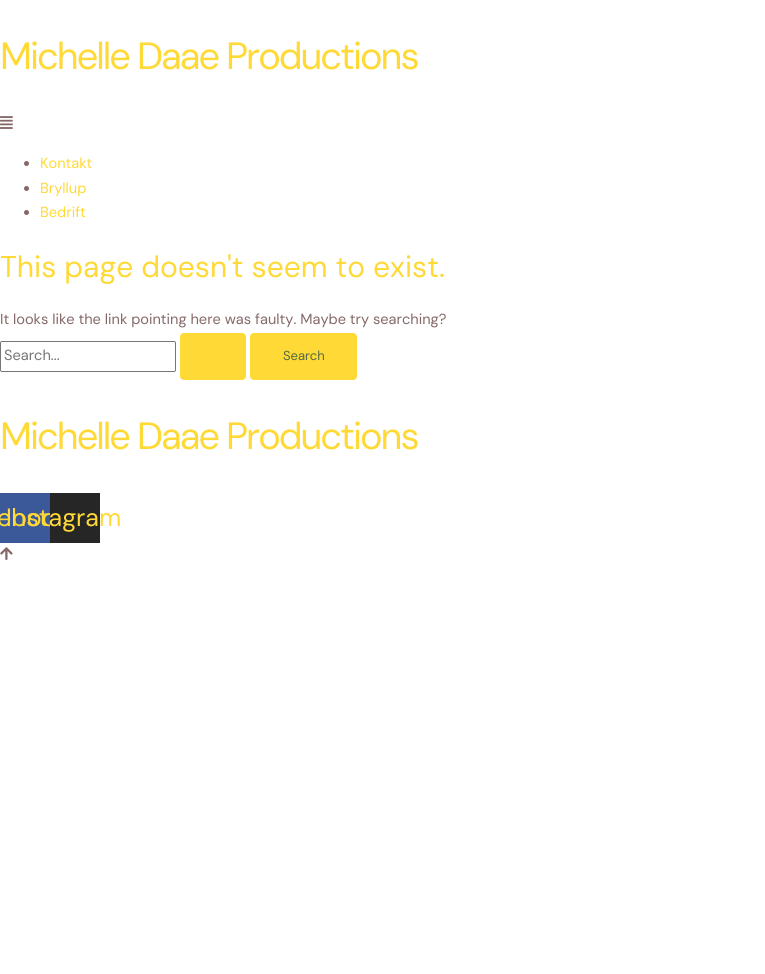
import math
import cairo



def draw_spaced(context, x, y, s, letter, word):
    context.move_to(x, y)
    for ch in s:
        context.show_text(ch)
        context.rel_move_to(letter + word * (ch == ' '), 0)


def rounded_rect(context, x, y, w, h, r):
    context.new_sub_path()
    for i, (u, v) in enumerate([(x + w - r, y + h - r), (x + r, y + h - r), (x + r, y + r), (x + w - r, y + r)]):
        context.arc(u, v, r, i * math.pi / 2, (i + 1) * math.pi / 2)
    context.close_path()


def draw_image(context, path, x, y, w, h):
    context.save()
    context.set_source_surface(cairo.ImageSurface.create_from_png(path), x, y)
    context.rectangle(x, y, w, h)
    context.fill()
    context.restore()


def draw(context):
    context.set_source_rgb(1, 1, 1)
    context.paint()
    draw_image(context, "images/1.png", 0, 116, 13, 13)
    context.set_source_rgb(133 / 255, 104 / 255, 104 / 255)
    context.arc(26.5, 163.5, 2.5, 0, 2 * math.pi)
    context.fill()
    context.arc(26.5, 188.5, 2.5, 0, 2 * math.pi)
    context.fill()
    context.arc(26.5, 212.5, 2.5, 0, 2 * math.pi)
    context.fill()
    rounded_rect(context, 0.5, 341.5, 175, 30, 1.5)
    context.set_source_rgb(118 / 255, 118 / 255, 118 / 255)
    context.set_line_width(1)
    context.stroke()
    context.set_source_rgb(1, 217 / 255, 54 / 255)
    rounded_rect(context, 180.5, 333.5, 65, 46, 3.5)
    context.fill_preserve()
    context.stroke()
    rounded_rect(context, 250.5, 333.5, 106, 46, 3.5)
    context.fill_preserve()
    context.stroke()
    context.set_source_rgb(59 / 255, 89 / 255, 152 / 255)
    context.rectangle(0, 493, 50, 50)
    context.fill()
    draw_image(context, "images/2.png", 0, 547, 13, 13)
    context.select_font_face("DM Sans")
    context.set_font_size(38)
    context.set_source_rgb(1, 217 / 255, 54 / 255)
    draw_spaced(context, 0, 69, "Michelle Daae Productions", -2, 0)
    context.set_font_size(14.6)
    context.move_to(40, 168)
    context.show_text("Kontakt")
    context.move_to(40, 193)
    context.show_text("Bryllup")
    context.move_to(40, 217)
    context.show_text("Bedrift")
    context.set_font_size(30)
    context.move_to(0, 277)
    context.show_text("This page doesn't seem to exist.")
    context.set_font_size(14.6)
    context.set_source_rgb(133 / 255, 104 / 255, 104 / 255)
    context.move_to(0, 324)
    context.show_text("It looks like the link pointing here was faulty. Maybe try searching?")
    context.set_source_rgb(117 / 255, 117 / 255, 117 / 255)
    context.move_to(4, 360)
    context.show_text("Search...")
    context.set_font_size(13)
    context.set_source_rgb(83 / 255, 105 / 255, 66 / 255)
    context.move_to(283, 360)
    context.show_text("Search")
    context.set_font_size(38)
    context.set_source_rgb(1, 217 / 255, 54 / 255)
    draw_spaced(context, 0, 449, "Michelle Daae Productions", -2, 0)
    context.set_font_size(25)
    context.move_to(-3, 526)
    context.show_text("eboo")
    context.set_source_rgb(38 / 255, 38 / 255, 38 / 255)
    context.rectangle(50, 493, 50, 50)
    context.fill()
    context.set_source_rgb(1, 217 / 255, 54 / 255)
    context.move_to(6, 526)
    context.show_text("Instagram")


surface = cairo.ImageSurface(cairo.Format.RGB24, 765, 974)
context = cairo.Context(surface)
options = cairo.FontOptions()
options.set_hint_metrics(cairo.HintMetrics.OFF)
options.set_hint_style(cairo.HintStyle.NONE)
context.set_font_options(options)
context.set_miter_limit(4)
draw(context)
surface.write_to_png("out.png")
